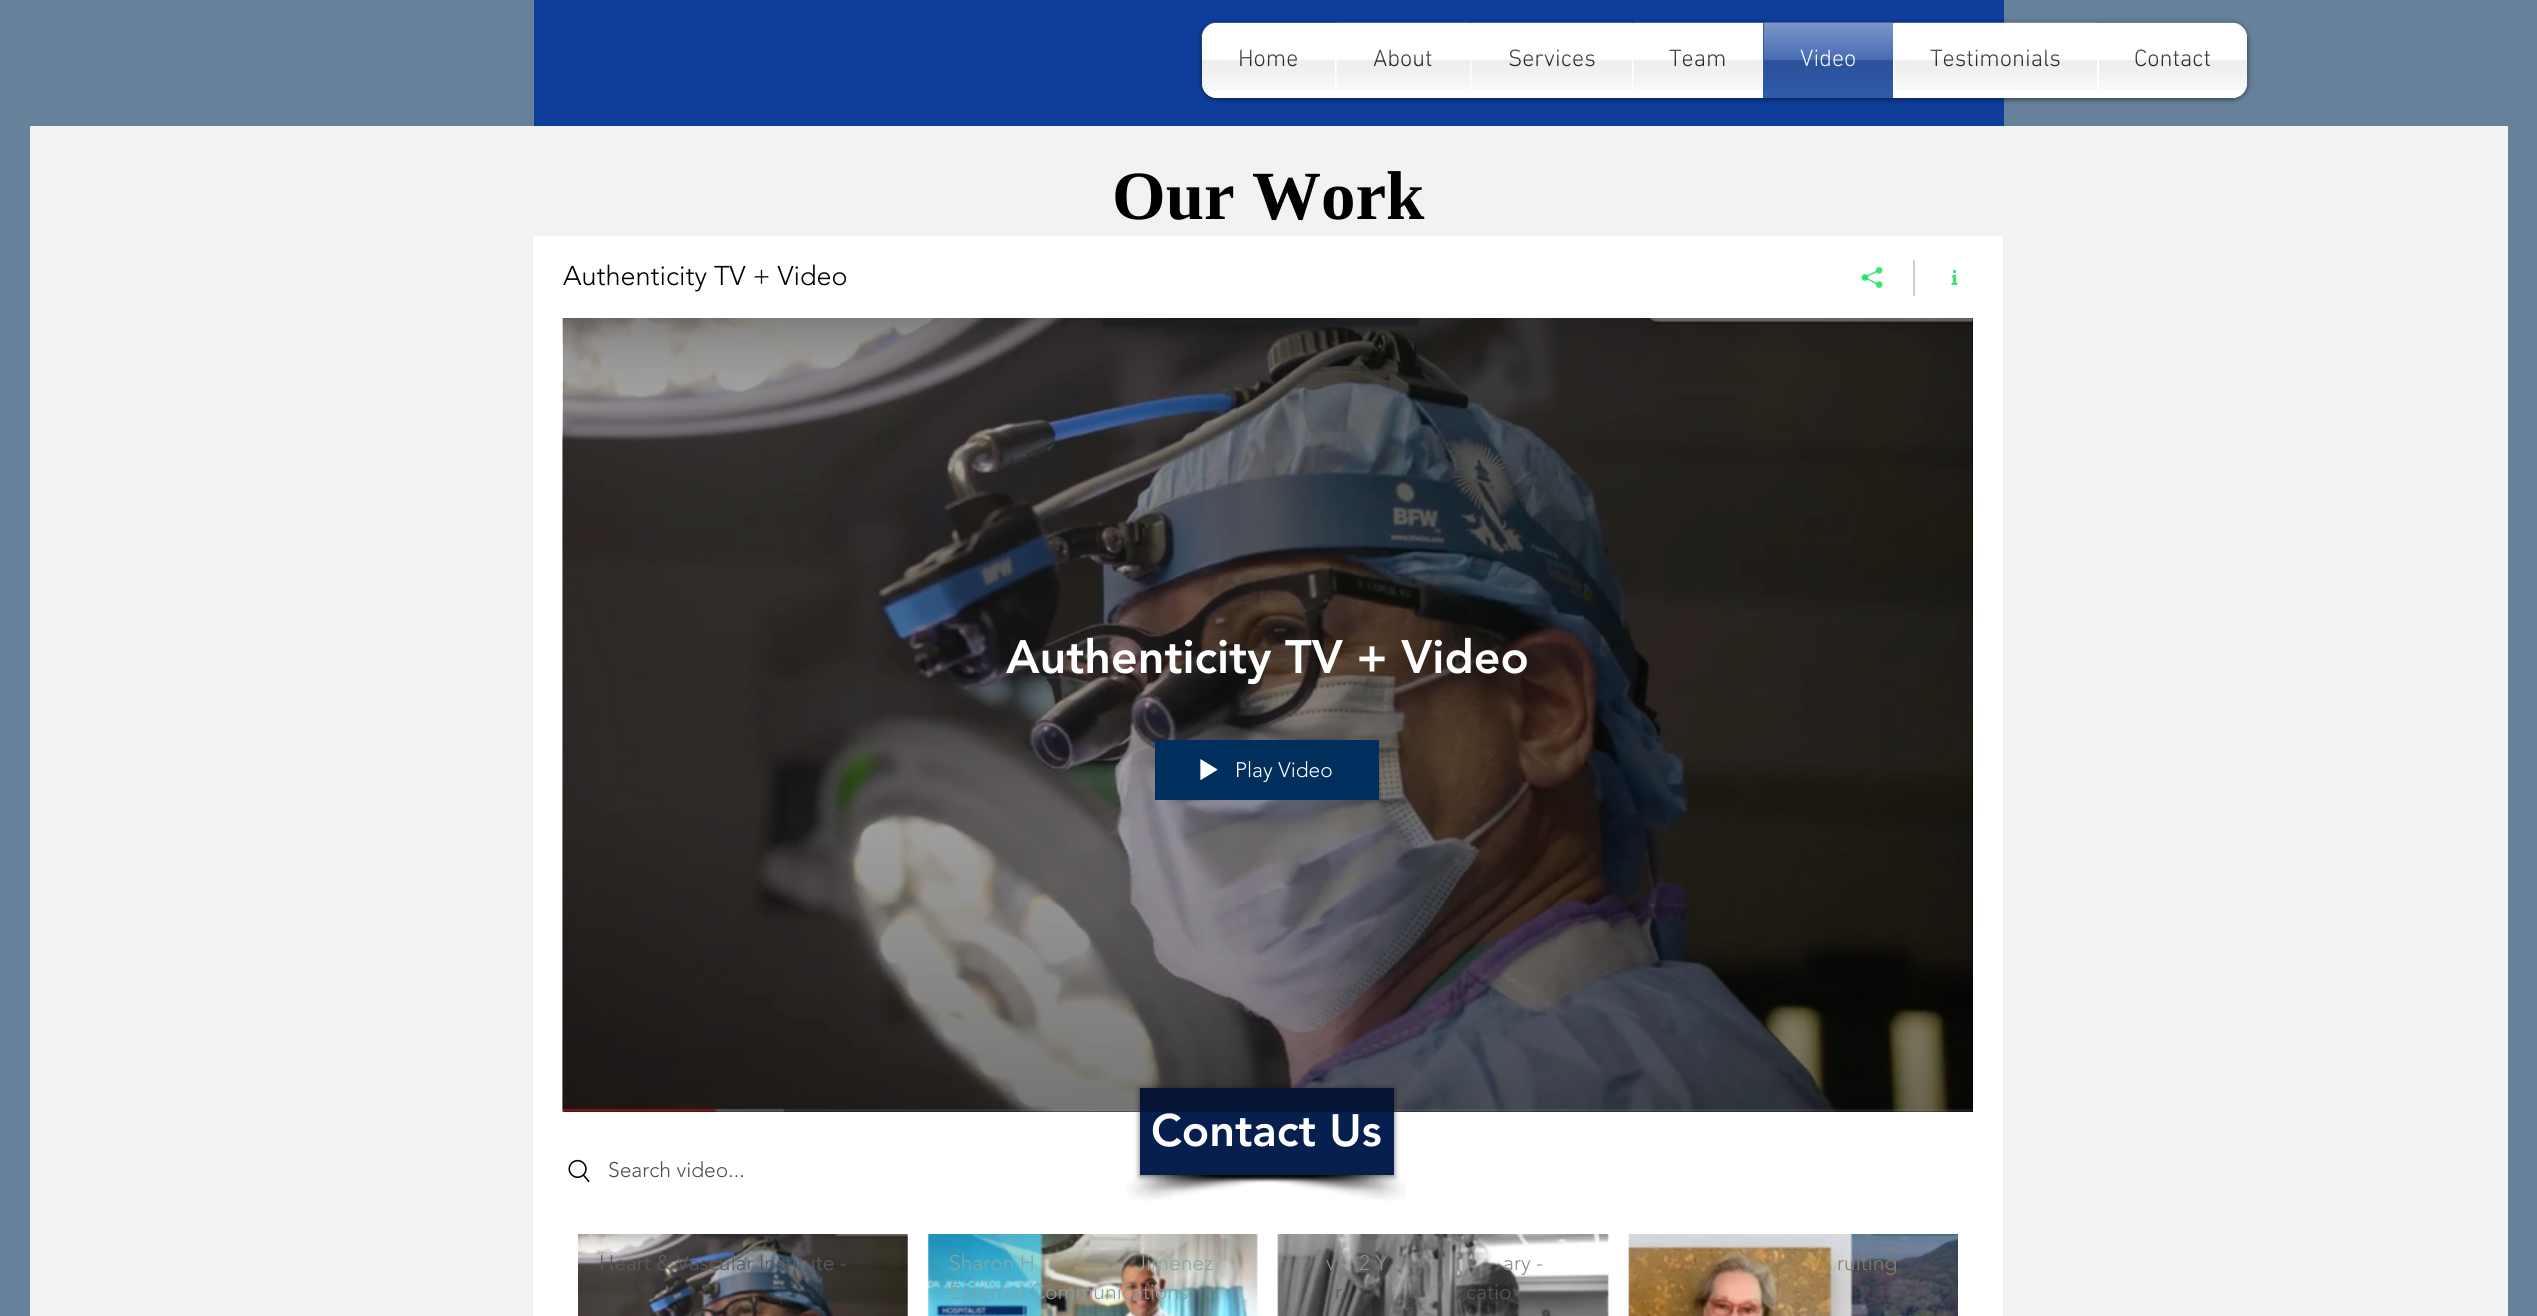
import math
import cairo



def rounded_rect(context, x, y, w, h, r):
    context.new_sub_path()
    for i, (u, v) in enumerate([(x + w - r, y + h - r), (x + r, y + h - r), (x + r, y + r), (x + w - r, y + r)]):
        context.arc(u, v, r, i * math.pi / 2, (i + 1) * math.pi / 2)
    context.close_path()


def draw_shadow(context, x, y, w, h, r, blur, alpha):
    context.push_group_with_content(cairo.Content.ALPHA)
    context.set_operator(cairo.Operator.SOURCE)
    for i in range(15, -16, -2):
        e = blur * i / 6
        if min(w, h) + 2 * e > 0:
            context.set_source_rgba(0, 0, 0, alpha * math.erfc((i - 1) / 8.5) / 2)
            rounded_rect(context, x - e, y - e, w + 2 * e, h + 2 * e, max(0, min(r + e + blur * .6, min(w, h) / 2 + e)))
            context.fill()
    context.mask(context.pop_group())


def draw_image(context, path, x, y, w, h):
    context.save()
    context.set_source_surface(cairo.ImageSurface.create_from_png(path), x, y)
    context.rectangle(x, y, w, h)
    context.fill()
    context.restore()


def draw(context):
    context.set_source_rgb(103 / 255, 129 / 255, 155 / 255)
    context.paint()
    context.set_source_rgb(14 / 255, 62 / 255, 155 / 255)
    context.rectangle(534, 0, 1470, 126)
    context.fill()
    context.set_source_rgb(0, 0, 0)
    draw_shadow(context, 1202, 24, 1045, 75, 15, 3, 0.6)
    context.set_source_rgb(1, 1, 1)
    rounded_rect(context, 1202, 23, 1045, 75, 15)
    context.fill()
    draw_image(context, "images/1.png", 1201, 22, 1046, 69)
    context.new_path()
    context.move_to(1217, 23)
    context.line_to(1335, 23)
    context.line_to(1335, 98)
    context.line_to(1217, 98)
    context.curve_to(1208.5, 98, 1202, 91.5, 1202, 83)
    context.line_to(1202, 38)
    context.curve_to(1202, 29.5, 1208.5, 23, 1217, 23)
    context.close_path()
    context.fill()
    context.rectangle(1335, 60, 428, 31)
    context.fill()
    context.set_source_rgba(14 / 255, 62 / 255, 155 / 255, 0.85)
    context.rectangle(1763, 23, 130, 75)
    context.fill()
    context.set_source_rgb(1, 1, 1)
    context.rectangle(1893, 60, 204, 31)
    context.fill()
    context.new_path()
    context.move_to(2097, 23)
    context.line_to(2232, 23)
    context.curve_to(2240.5, 23, 2247, 29.5, 2247, 38)
    context.line_to(2247, 83)
    context.curve_to(2247, 91.5, 2240.5, 98, 2232, 98)
    context.line_to(2097, 98)
    context.close_path()
    context.fill()
    context.set_source_rgb(242 / 255, 242 / 255, 242 / 255)
    context.rectangle(30, 126, 2478, 1190)
    context.fill()
    context.set_source_rgb(1, 1, 1)
    context.rectangle(533, 236, 1470, 1080)
    context.fill()
    context.set_source_rgb(204 / 255, 204 / 255, 204 / 255)
    context.rectangle(1913, 260, 2, 36)
    context.fill()
    draw_image(context, "images/9.png", 1861, 267, 22, 21)
    draw_image(context, "images/10.png", 1951, 270, 7, 15)
    context.set_source_rgb(0, 0, 0)
    context.rectangle(563, 318, 1410, 794)
    context.fill()
    draw_image(context, "images/11.png", 562, 318, 1411, 794)
    draw_image(context, "images/12.png", 562, 318, 1411, 794)
    draw_image(context, "images/23.png", 1127, 1175, 223, 26)
    draw_image(context, "images/24.png", 1199, 1175, 207, 26)
    context.set_source_rgb(0, 0, 0)
    draw_shadow(context, 1140, 1089, 254, 87, 0, 3, 0.6)
    context.set_source_rgb(7 / 255, 31 / 255, 78 / 255)
    context.rectangle(1140, 1088, 254, 87)
    context.fill()
    context.set_source_rgba(0, 0, 0, 0.35)
    context.rectangle(563, 318, 1410, 794)
    context.fill()
    context.set_source_rgb(0, 46 / 255, 93 / 255)
    context.rectangle(1155, 740, 224, 60)
    context.fill()
    draw_image(context, "images/13.png", 1200, 759, 18, 21)
    draw_image(context, "images/14.png", 568, 1159, 22, 24)
    draw_image(context, "images/15.png", 907, 1234, 1, 82)
    draw_image(context, "images/16.png", 578, 1234, 330, 82)
    draw_image(context, "images/17.png", 928, 1234, 330, 82)
    draw_image(context, "images/18.png", 928, 1234, 330, 82)
    draw_image(context, "images/19.png", 1277, 1234, 332, 82)
    draw_image(context, "images/20.png", 1277, 1234, 332, 82)
    draw_image(context, "images/21.png", 1628, 1234, 2, 82)
    draw_image(context, "images/22.png", 1628, 1234, 330, 82)
    context.select_font_face("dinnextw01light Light")
    context.set_font_size(24)
    context.set_source_rgb(41 / 255, 40 / 255, 40 / 255)
    context.move_to(1238, 66)
    context.show_text("Home")
    draw_image(context, "images/2.png", 1201, 22, 134, 69)
    context.move_to(1373, 66)
    context.show_text("About")
    draw_image(context, "images/3.png", 1336, 22, 134, 69)
    context.move_to(1508, 66)
    context.show_text("Services")
    draw_image(context, "images/4.png", 1471, 22, 161, 69)
    context.move_to(1669, 66)
    context.show_text("Team")
    draw_image(context, "images/5.png", 1633, 22, 130, 69)
    context.set_source_rgb(1, 1, 1)
    context.move_to(1800, 66)
    context.show_text("Video")
    draw_image(context, "images/6.png", 1764, 22, 129, 67)
    context.set_source_rgb(41 / 255, 40 / 255, 40 / 255)
    context.move_to(1930, 66)
    context.show_text("Testimonials")
    draw_image(context, "images/7.png", 1894, 22, 203, 69)
    context.move_to(2134, 66)
    context.show_text("Contact")
    draw_image(context, "images/8.png", 2099, 22, 148, 69)
    context.select_font_face("Liberation Serif", cairo.FontSlant.NORMAL, cairo.FontWeight.BOLD)
    context.set_font_size(69)
    context.set_source_rgb(0, 0, 0)
    context.move_to(1112, 219)
    context.show_text("Our Work")
    context.select_font_face("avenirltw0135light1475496 Light")
    context.set_font_size(27)
    context.move_to(563, 285)
    context.show_text("Authenticity TV + Video")
    context.select_font_face("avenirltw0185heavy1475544 Black")
    context.set_font_size(46.5)
    context.set_source_rgb(1, 1, 1)
    context.move_to(1006, 673)
    context.show_text("Authenticity TV + Video")
    context.select_font_face("avenirltw0135light1475496 Light")
    context.set_font_size(21)
    context.move_to(1235, 777)
    context.show_text("Play Video")
    context.set_source_rgb(77 / 255, 77 / 255, 77 / 255)
    context.move_to(608, 1177)
    context.show_text("Search video...")
    context.set_source_rgb(90 / 255, 92 / 255, 97 / 255)
    context.move_to(599, 1270)
    context.show_text("Heart & Vascular Institute -")
    context.set_source_rgb(134 / 255, 166 / 255, 166 / 255)
    context.move_to(949, 1270)
    context.show_text("Sharon H")
    context.move_to(1125, 1270)
    context.show_text(". Jimenez")
    context.set_source_rgb(127 / 255, 161 / 255, 165 / 255)
    context.move_to(949, 1299)
    context.show_text("External Communications")
    context.set_source_rgb(140 / 255, 140 / 255, 140 / 255)
    context.move_to(1326, 1270)
    context.show_text("v")
    context.move_to(1359, 1270)
    context.show_text("2 Y")
    context.move_to(1503, 1270)
    context.show_text("ary -")
    context.set_source_rgb(89 / 255, 89 / 255, 89 / 255)
    context.move_to(1335, 1299)
    context.show_text("r")
    context.move_to(1466, 1299)
    context.show_text("catio")
    context.set_source_rgb(146 / 255, 123 / 255, 93 / 255)
    context.move_to(1837, 1270)
    context.show_text("ruiting")
    context.select_font_face("avenirltw0185heavy1475544 Black")
    context.set_font_size(45)
    context.set_source_rgb(1, 1, 1)
    context.move_to(1151, 1146)
    context.show_text("Contact Us")


surface = cairo.ImageSurface(cairo.Format.RGB24, 2537, 1316)
context = cairo.Context(surface)
options = cairo.FontOptions()
options.set_hint_metrics(cairo.HintMetrics.OFF)
options.set_hint_style(cairo.HintStyle.NONE)
context.set_font_options(options)
context.set_miter_limit(4)
draw(context)
surface.write_to_png("out.png")
